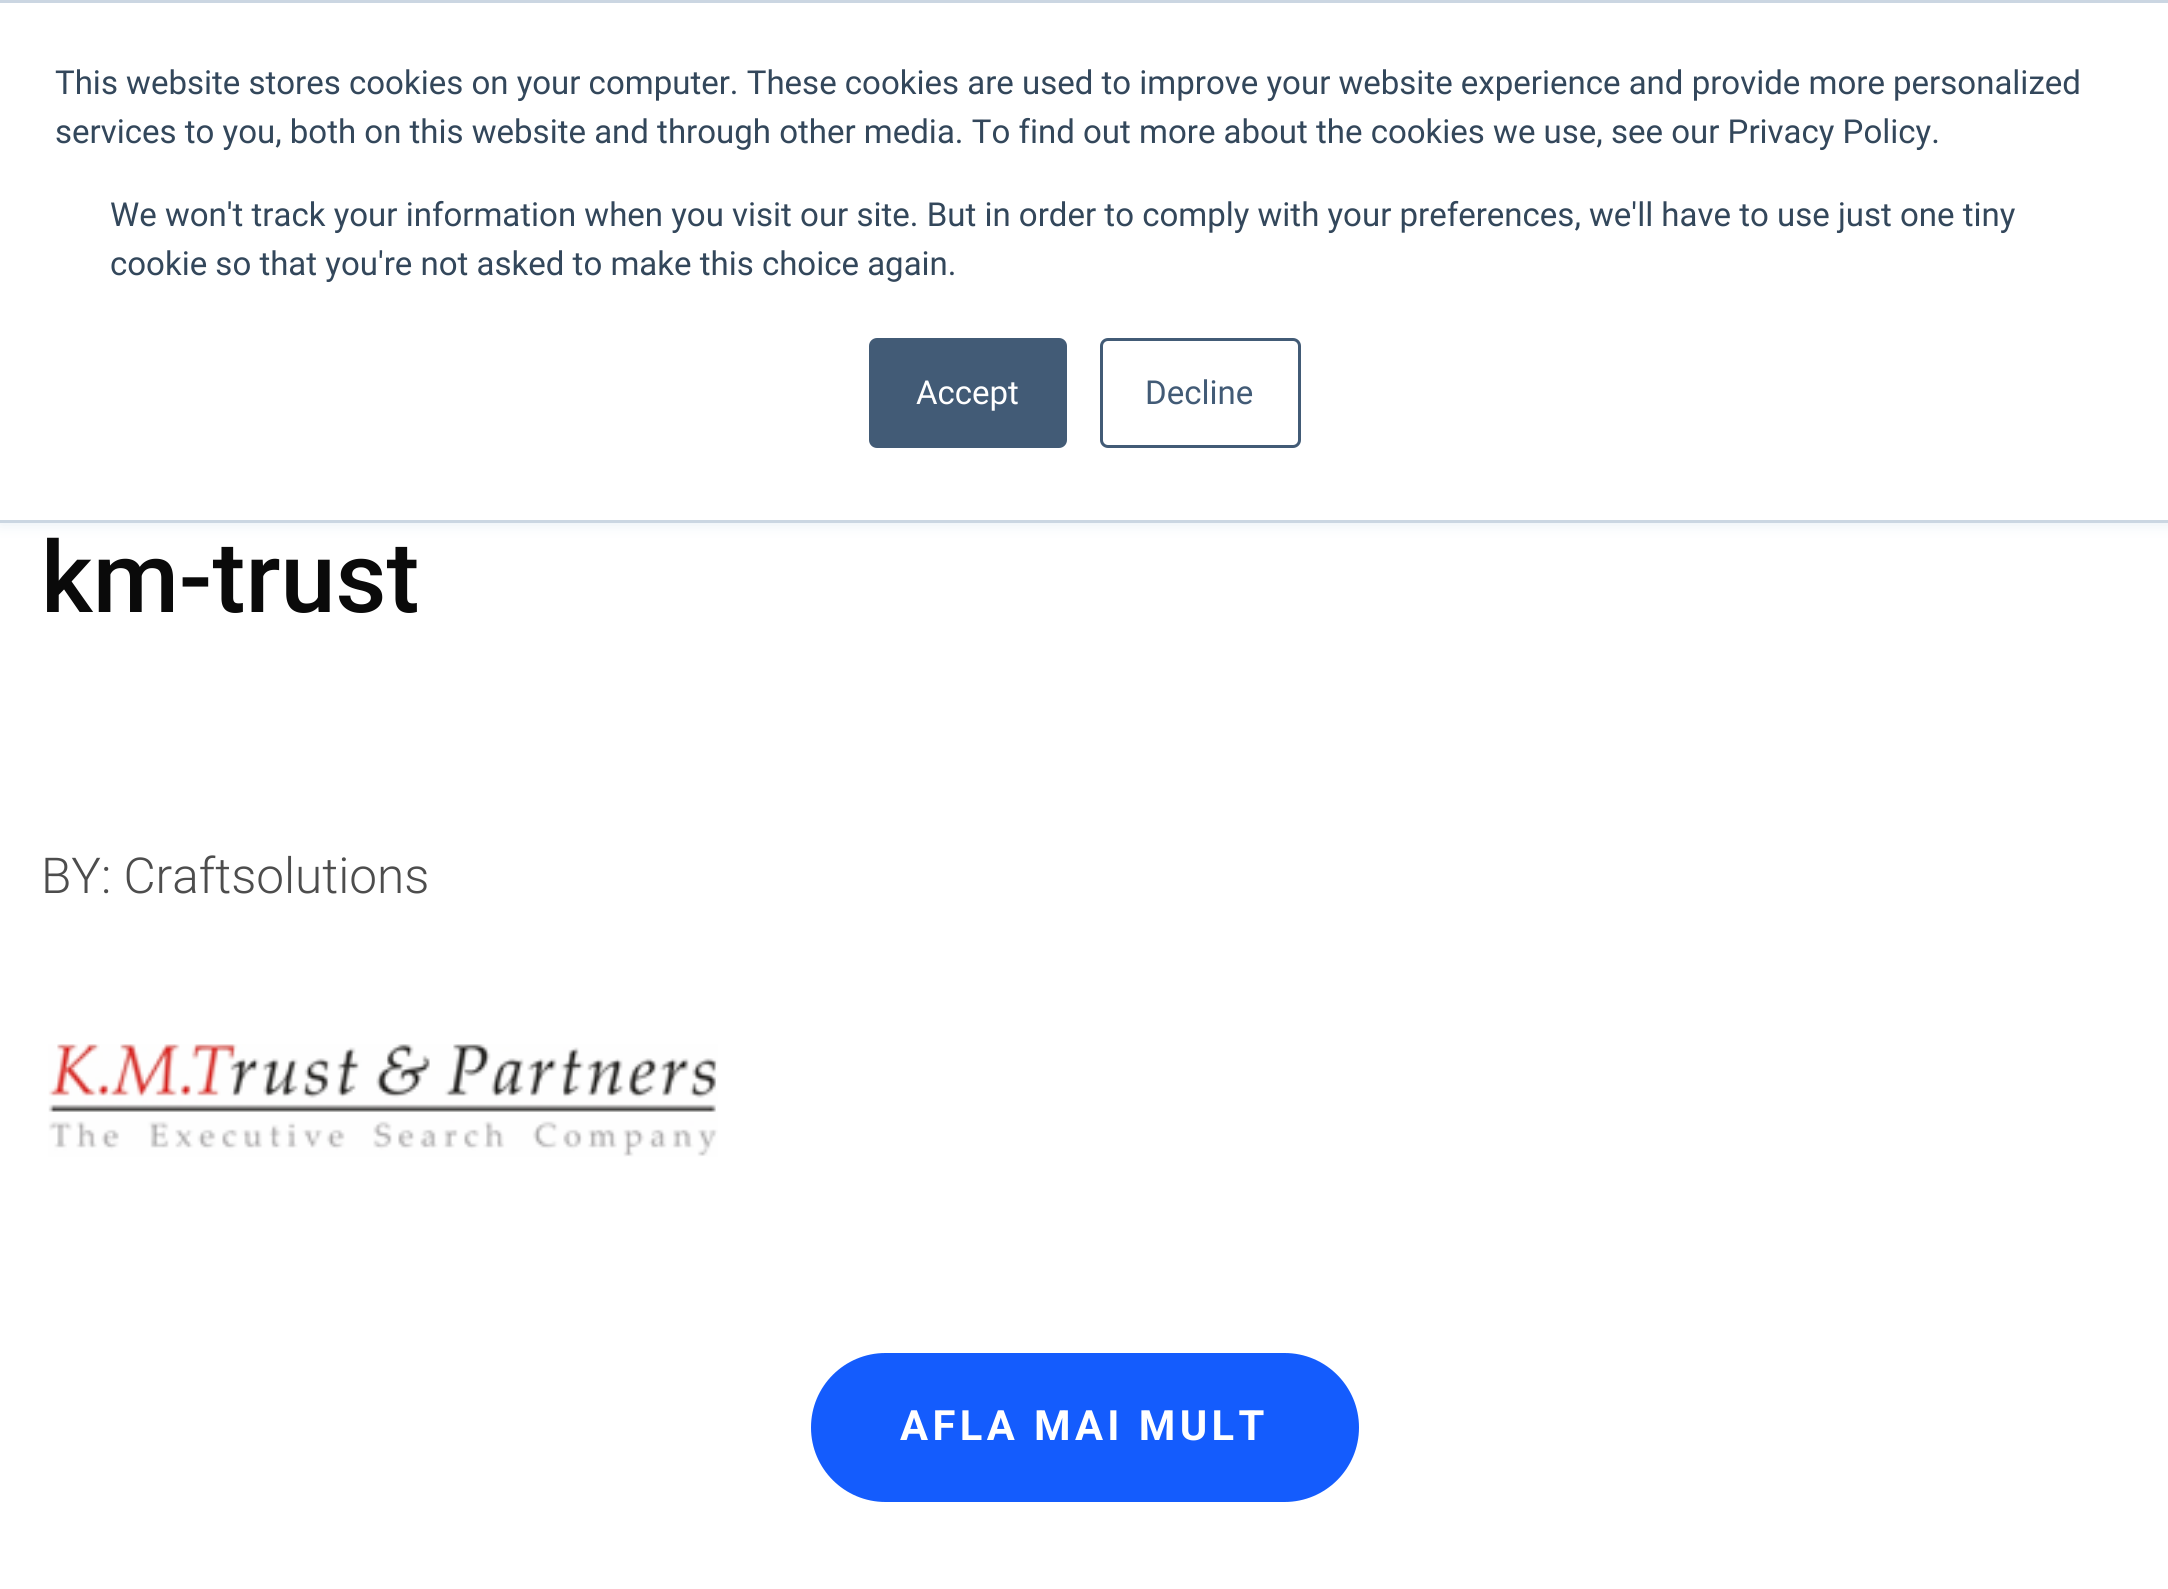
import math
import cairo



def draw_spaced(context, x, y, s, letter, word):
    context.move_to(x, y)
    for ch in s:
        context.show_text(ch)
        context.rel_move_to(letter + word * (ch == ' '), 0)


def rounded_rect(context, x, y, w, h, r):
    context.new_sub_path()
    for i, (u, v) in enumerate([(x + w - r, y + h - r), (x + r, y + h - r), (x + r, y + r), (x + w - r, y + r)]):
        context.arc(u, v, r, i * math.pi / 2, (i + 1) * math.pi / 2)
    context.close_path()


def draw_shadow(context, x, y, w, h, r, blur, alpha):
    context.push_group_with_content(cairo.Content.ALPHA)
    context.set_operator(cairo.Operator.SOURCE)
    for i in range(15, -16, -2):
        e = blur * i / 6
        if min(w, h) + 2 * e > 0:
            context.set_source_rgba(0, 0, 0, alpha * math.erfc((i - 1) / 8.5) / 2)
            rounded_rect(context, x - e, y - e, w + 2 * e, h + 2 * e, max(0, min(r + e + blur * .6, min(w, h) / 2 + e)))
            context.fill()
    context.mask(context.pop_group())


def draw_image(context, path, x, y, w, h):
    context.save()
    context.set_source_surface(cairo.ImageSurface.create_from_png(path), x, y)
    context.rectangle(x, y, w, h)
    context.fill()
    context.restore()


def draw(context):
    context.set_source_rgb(1, 1, 1)
    context.paint()
    context.set_source_rgb(234 / 255, 240 / 255, 246 / 255)
    draw_shadow(context, 0, 3, 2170, 522, 0, 7, 1)
    context.set_source_rgb(1, 1, 1)
    context.rectangle(0, 3, 2168, 517)
    context.fill()
    context.set_source_rgb(203 / 255, 214 / 255, 226 / 255)
    context.rectangle(0, 0, 2168, 3)
    context.fill()
    context.rectangle(0, 520, 2168, 3)
    context.fill()
    context.set_source_rgb(66 / 255, 91 / 255, 118 / 255)
    rounded_rect(context, 870.5, 339.5, 195, 107, 6.5)
    context.fill_preserve()
    context.set_line_width(3)
    context.stroke()
    rounded_rect(context, 1101.5, 339.5, 198, 107, 6.5)
    context.stroke()
    draw_image(context, "images/1.png", 48, 1044, 670, 113)
    context.set_source_rgb(20 / 255, 92 / 255, 253 / 255)
    rounded_rect(context, 811, 1353, 548, 149, 74.5)
    context.fill()
    context.select_font_face("Roboto")
    context.set_font_size(33)
    context.set_source_rgb(51 / 255, 71 / 255, 91 / 255)
    context.move_to(55, 94)
    context.show_text("This website stores cookies on your computer. These cookies are used to improve your website experience and provide more personalized")
    context.move_to(55, 143)
    context.show_text("services to you, both on this website and through other media. To find out more about the cookies we use, see our Privacy Policy.")
    context.move_to(110, 226)
    context.show_text("We won't track your information when you visit our site. But in order to comply with your preferences, we'll have to use just one tiny")
    context.move_to(110, 275)
    context.show_text("cookie so that you're not asked to make this choice again.")
    context.set_source_rgb(1, 1, 1)
    context.move_to(916, 404)
    context.show_text("Accept")
    context.set_source_rgb(66 / 255, 91 / 255, 118 / 255)
    context.move_to(1145, 404)
    context.show_text("Decline")
    context.select_font_face("Roboto Medium")
    context.set_font_size(99)
    context.set_source_rgb(10 / 255, 10 / 255, 10 / 255)
    context.move_to(41, 612)
    context.show_text("km-trust")
    context.select_font_face("Roboto Light")
    context.set_font_size(49.5)
    context.set_source_rgb(77 / 255, 77 / 255, 77 / 255)
    context.move_to(41, 893)
    context.show_text("BY: Craftsolutions")
    context.select_font_face("Roboto", cairo.FontSlant.NORMAL, cairo.FontWeight.BOLD)
    context.set_font_size(41.75)
    context.set_source_rgb(1, 1, 1)
    draw_spaced(context, 900, 1440, "AFLA MAI MULT", 4.4, 0)


surface = cairo.ImageSurface(cairo.Format.RGB24, 2168, 1589)
context = cairo.Context(surface)
options = cairo.FontOptions()
options.set_hint_metrics(cairo.HintMetrics.OFF)
options.set_hint_style(cairo.HintStyle.NONE)
context.set_font_options(options)
context.set_miter_limit(4)
draw(context)
surface.write_to_png("out.png")
